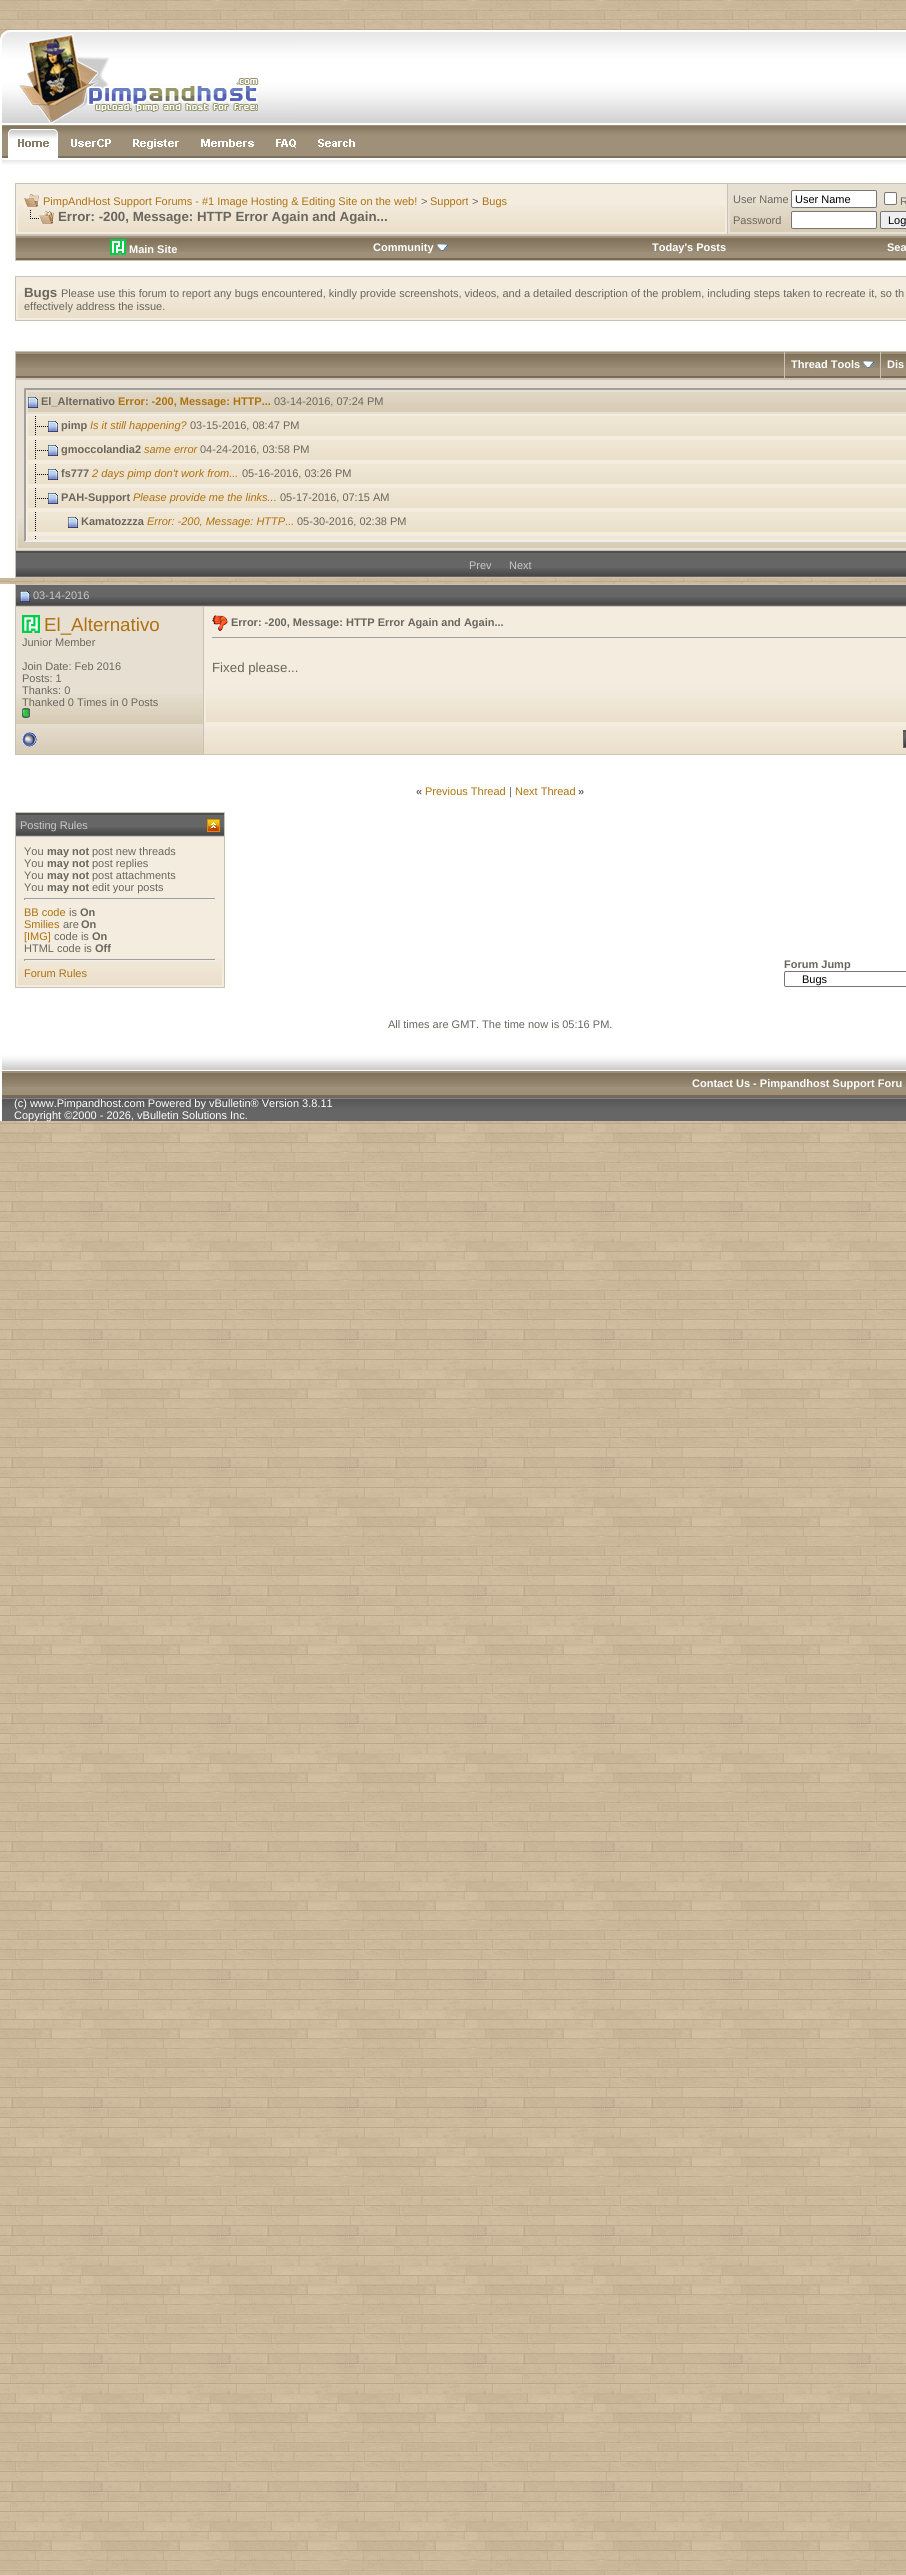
import math
import cairo



def rounded_rect(context, x, y, w, h, r):
    context.new_sub_path()
    for i, (u, v) in enumerate([(x + w - r, y + h - r), (x + r, y + h - r), (x + r, y + r), (x + w - r, y + r)]):
        context.arc(u, v, r, i * math.pi / 2, (i + 1) * math.pi / 2)
    context.close_path()


def draw_image(context, path, x, y, w, h):
    context.save()
    context.set_source_surface(cairo.ImageSurface.create_from_png(path), x, y)
    context.rectangle(x, y, w, h)
    context.fill()
    context.restore()


def draw(context):
    context.set_source_rgb(1, 1, 1)
    context.paint()
    draw_image(context, "images/1.png", 0, 0, 906, 2575)
    draw_image(context, "images/2.png", 0, 30, 294, 95)
    draw_image(context, "images/3.png", 294, 30, 612, 95)
    context.set_source_rgb(1, 1, 1)
    context.rectangle(0, 125, 2, 58)
    context.fill()
    draw_image(context, "images/4.png", 2, 125, 63, 33)
    draw_image(context, "images/5.png", 65, 125, 57, 33)
    draw_image(context, "images/6.png", 122, 125, 67, 33)
    draw_image(context, "images/7.png", 189, 125, 75, 33)
    draw_image(context, "images/8.png", 264, 125, 43, 33)
    draw_image(context, "images/9.png", 307, 125, 59, 33)
    draw_image(context, "images/10.png", 366, 125, 540, 33)
    draw_image(context, "images/11.png", 2, 158, 904, 25)
    context.rectangle(0, 183, 906, 196)
    context.fill()
    context.set_source_rgb(202 / 255, 195 / 255, 181 / 255)
    context.rectangle(15, 183, 891, 78)
    context.fill()
    context.set_source_rgb(243 / 255, 236 / 255, 223 / 255)
    context.rectangle(18, 186, 707, 19)
    context.fill()
    draw_image(context, "images/12.png", 18, 205, 707, 27)
    context.rectangle(17, 185, 709, 48)
    context.stroke()
    draw_image(context, "images/13.png", 24, 194, 15, 13)
    draw_image(context, "images/14.png", 30, 210, 24, 14)
    context.set_source_rgb(231 / 255, 224 / 255, 210 / 255)
    context.rectangle(730, 186, 176, 16)
    context.fill()
    draw_image(context, "images/15.png", 730, 202, 176, 30)
    context.rectangle(729, 185, 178, 48)
    context.stroke()
    context.set_source_rgb(1, 1, 1)
    rounded_rect(context, 791.5, 190.5, 85, 17, 1.5)
    context.fill_preserve()
    context.set_source_rgb(118 / 255, 118 / 255, 118 / 255)
    context.set_line_width(1)
    context.stroke()
    context.set_source_rgb(1, 1, 1)
    rounded_rect(context, 884.5, 192.5, 12, 12, 1.5)
    context.fill_preserve()
    context.set_source_rgb(118 / 255, 118 / 255, 118 / 255)
    context.stroke()
    context.set_source_rgb(1, 1, 1)
    rounded_rect(context, 791.5, 211.5, 85, 17, 1.5)
    context.fill_preserve()
    context.set_source_rgb(118 / 255, 118 / 255, 118 / 255)
    context.stroke()
    context.set_source_rgb(239 / 255, 239 / 255, 239 / 255)
    rounded_rect(context, 880.5, 211.5, 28, 17, 1.5)
    context.fill_preserve()
    context.set_source_rgb(118 / 255, 118 / 255, 118 / 255)
    context.stroke()
    context.set_source_rgb(158 / 255, 144 / 255, 121 / 255)
    context.rectangle(16, 236, 890, 22)
    context.fill()
    draw_image(context, "images/16.png", 16, 238, 255, 14)
    context.set_source_rgb(122 / 255, 106 / 255, 83 / 255)
    context.rectangle(16, 258, 890, 2)
    context.fill()
    draw_image(context, "images/17.png", 110, 239, 16, 16)
    draw_image(context, "images/18.png", 271, 238, 279, 14)
    draw_image(context, "images/19.png", 437, 244, 11, 7)
    draw_image(context, "images/20.png", 550, 238, 277, 14)
    draw_image(context, "images/21.png", 827, 238, 79, 14)
    context.set_source_rgb(202 / 255, 195 / 255, 181 / 255)
    context.rectangle(15, 276, 891, 45)
    context.fill()
    context.set_source_rgb(243 / 255, 236 / 255, 223 / 255)
    context.rectangle(18, 279, 888, 12)
    context.fill()
    draw_image(context, "images/22.png", 18, 291, 888, 27)
    context.rectangle(17, 278, 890, 41)
    context.set_line_width(2)
    context.stroke()
    context.set_source_rgb(202 / 255, 195 / 255, 181 / 255)
    context.rectangle(15, 351, 891, 227)
    context.fill()
    context.set_source_rgb(158 / 255, 144 / 255, 121 / 255)
    context.rectangle(16, 352, 768, 24)
    context.fill()
    draw_image(context, "images/23.png", 16, 354, 768, 14)
    context.set_source_rgb(122 / 255, 106 / 255, 83 / 255)
    context.rectangle(16, 376, 768, 2)
    context.fill()
    context.set_source_rgb(158 / 255, 144 / 255, 121 / 255)
    context.rectangle(785, 352, 95, 24)
    context.fill()
    draw_image(context, "images/24.png", 785, 354, 95, 14)
    context.set_source_rgb(122 / 255, 106 / 255, 83 / 255)
    context.rectangle(785, 376, 95, 2)
    context.fill()
    draw_image(context, "images/25.png", 863, 361, 11, 7)
    context.set_source_rgb(158 / 255, 144 / 255, 121 / 255)
    context.rectangle(881, 352, 25, 24)
    context.fill()
    draw_image(context, "images/26.png", 881, 354, 25, 14)
    context.set_source_rgb(122 / 255, 106 / 255, 83 / 255)
    context.rectangle(881, 376, 25, 2)
    context.fill()
    context.set_source_rgb(1, 1, 1)
    context.rectangle(0, 379, 15, 199)
    context.fill()
    context.set_source_rgb(231 / 255, 224 / 255, 210 / 255)
    context.rectangle(18, 382, 888, 136)
    context.fill()
    draw_image(context, "images/27.png", 18, 518, 888, 30)
    context.rectangle(17, 381, 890, 168)
    context.stroke()
    context.set_source_rgb(159 / 255, 159 / 255, 159 / 255)
    context.new_path()
    context.move_to(24, 388)
    context.line_to(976, 388)
    context.line_to(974, 390)
    context.line_to(26, 390)
    context.close_path()
    context.fill()
    context.set_source_rgb(238 / 255, 238 / 255, 238 / 255)
    context.new_path()
    context.move_to(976, 542)
    context.line_to(24, 542)
    context.line_to(26, 540)
    context.line_to(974, 540)
    context.close_path()
    context.fill()
    context.set_source_rgb(159 / 255, 159 / 255, 159 / 255)
    context.new_path()
    context.move_to(24, 542)
    context.line_to(24, 388)
    context.line_to(26, 390)
    context.line_to(26, 540)
    context.close_path()
    context.fill()
    draw_image(context, "images/28.png", 28, 392, 878, 20)
    draw_image(context, "images/29.png", 28, 397, 10, 11)
    draw_image(context, "images/30.png", 28, 416, 878, 20)
    context.rectangle(27, 415, 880, 22)
    context.set_source_rgb(243 / 255, 236 / 255, 223 / 255)
    context.stroke()
    draw_image(context, "images/31.png", 35, 416, 13, 19)
    draw_image(context, "images/32.png", 48, 421, 10, 11)
    draw_image(context, "images/30.png", 28, 440, 878, 20)
    context.rectangle(27, 439, 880, 22)
    context.stroke()
    draw_image(context, "images/31.png", 35, 440, 13, 19)
    draw_image(context, "images/32.png", 48, 445, 10, 11)
    draw_image(context, "images/30.png", 28, 464, 878, 20)
    context.rectangle(27, 463, 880, 22)
    context.stroke()
    draw_image(context, "images/31.png", 35, 464, 13, 19)
    draw_image(context, "images/32.png", 48, 469, 10, 11)
    draw_image(context, "images/30.png", 28, 488, 878, 20)
    context.rectangle(27, 487, 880, 22)
    context.stroke()
    draw_image(context, "images/31.png", 35, 488, 13, 19)
    draw_image(context, "images/32.png", 48, 493, 10, 11)
    draw_image(context, "images/30.png", 28, 512, 878, 20)
    context.rectangle(27, 511, 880, 22)
    context.stroke()
    draw_image(context, "images/33.png", 35, 512, 1, 19)
    draw_image(context, "images/32.png", 68, 517, 10, 11)
    context.set_source_rgb(239 / 255, 230 / 255, 213 / 255)
    context.rectangle(26, 536, 880, 4)
    context.fill()
    context.set_source_rgb(102 / 255, 102 / 255, 102 / 255)
    context.rectangle(16, 553, 890, 24)
    context.fill()
    context.set_source_rgb(78 / 255, 78 / 255, 78 / 255)
    context.rectangle(16, 551, 890, 2)
    context.fill()
    context.save()
    context.rectangle(26, 390, 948, 150)
    context.clip()
    context.rectangle(27, 535, 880, 22)
    context.set_source_rgb(243 / 255, 236 / 255, 223 / 255)
    context.stroke()
    context.restore()
    draw_image(context, "images/34.png", 35, 536, 1, 3)
    draw_image(context, "images/35.png", 16, 568, 890, 8)
    context.set_source_rgb(1, 1, 1)
    context.rectangle(0, 584, 906, 461)
    context.fill()
    context.set_source_rgb(102 / 255, 102 / 255, 102 / 255)
    context.rectangle(16, 585, 890, 21)
    context.fill()
    draw_image(context, "images/36.png", 16, 597, 188, 8)
    context.set_source_rgb(202 / 255, 195 / 255, 181 / 255)
    context.rectangle(15, 584, 891, 1)
    context.fill()
    context.rectangle(15, 606, 891, 1)
    context.fill()
    context.rectangle(15, 584, 1, 140)
    context.fill()
    draw_image(context, "images/37.png", 20, 591, 10, 11)
    draw_image(context, "images/38.png", 204, 597, 702, 8)
    context.set_source_rgb(231 / 255, 224 / 255, 210 / 255)
    context.rectangle(16, 607, 187, 87)
    context.fill()
    draw_image(context, "images/39.png", 16, 694, 187, 30)
    context.set_source_rgb(202 / 255, 195 / 255, 181 / 255)
    context.rectangle(203, 607, 1, 148)
    context.fill()
    draw_image(context, "images/40.png", 22, 615, 18, 18)
    draw_image(context, "images/41.png", 22, 708, 8, 10)
    context.set_source_rgb(243 / 255, 236 / 255, 223 / 255)
    context.rectangle(206, 609, 700, 48)
    context.fill()
    draw_image(context, "images/42.png", 206, 657, 700, 65)
    context.new_path()
    context.move_to(204, 607)
    context.line_to(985, 607)
    context.line_to(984, 609)
    context.line_to(206, 609)
    context.close_path()
    context.fill()
    context.new_path()
    context.move_to(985, 724)
    context.line_to(204, 724)
    context.line_to(206, 722)
    context.line_to(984, 722)
    context.close_path()
    context.fill()
    context.rectangle(204, 607, 2, 117)
    context.fill()
    draw_image(context, "images/43.png", 212, 615, 16, 16)
    context.set_source_rgb(159 / 255, 159 / 255, 159 / 255)
    context.rectangle(212, 637, 694, 1)
    context.fill()
    draw_image(context, "images/39.png", 16, 724, 187, 30)
    context.set_source_rgb(202 / 255, 195 / 255, 181 / 255)
    context.rectangle(15, 754, 891, 1)
    context.fill()
    context.rectangle(15, 724, 1, 31)
    context.fill()
    draw_image(context, "images/44.png", 22, 732, 15, 15)
    context.set_source_rgb(243 / 255, 236 / 255, 223 / 255)
    context.rectangle(204, 724, 702, 3)
    context.fill()
    draw_image(context, "images/45.png", 204, 727, 702, 27)
    draw_image(context, "images/46.png", 903, 730, 3, 18)
    context.set_source_rgb(202 / 255, 195 / 255, 181 / 255)
    context.rectangle(15, 812, 210, 176)
    context.fill()
    context.set_source_rgb(102 / 255, 102 / 255, 102 / 255)
    context.rectangle(16, 815, 208, 21)
    context.fill()
    draw_image(context, "images/47.png", 16, 827, 208, 8)
    context.set_source_rgb(78 / 255, 78 / 255, 78 / 255)
    context.rectangle(16, 813, 208, 2)
    context.fill()
    draw_image(context, "images/48.png", 207, 819, 13, 13)
    context.set_source_rgb(243 / 255, 236 / 255, 223 / 255)
    context.rectangle(18, 839, 204, 119)
    context.fill()
    draw_image(context, "images/49.png", 18, 958, 204, 27)
    context.rectangle(17, 838, 206, 148)
    context.stroke()
    context.set_source_rgb(159 / 255, 159 / 255, 159 / 255)
    context.rectangle(24, 898, 192, 1)
    context.fill()
    context.set_source_rgb(238 / 255, 238 / 255, 238 / 255)
    context.rectangle(215, 898, 1, 2)
    context.fill()
    context.rectangle(24, 899, 192, 1)
    context.fill()
    context.set_source_rgb(159 / 255, 159 / 255, 159 / 255)
    context.rectangle(24, 898, 1, 2)
    context.fill()
    context.rectangle(24, 959, 192, 1)
    context.fill()
    context.set_source_rgb(238 / 255, 238 / 255, 238 / 255)
    context.rectangle(215, 959, 1, 2)
    context.fill()
    context.rectangle(24, 960, 192, 1)
    context.fill()
    context.set_source_rgb(159 / 255, 159 / 255, 159 / 255)
    context.rectangle(24, 959, 1, 2)
    context.fill()
    rounded_rect(context, 784.5, 971.5, 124, 15, 1.5)
    context.set_source_rgb(118 / 255, 118 / 255, 118 / 255)
    context.set_line_width(1)
    context.stroke()
    context.set_source_rgb(1, 1, 1)
    context.rectangle(0, 1045, 2, 76)
    context.fill()
    draw_image(context, "images/50.png", 2, 1045, 904, 26)
    context.set_source_rgb(158 / 255, 144 / 255, 121 / 255)
    context.rectangle(2, 1071, 904, 24)
    context.fill()
    draw_image(context, "images/51.png", 2, 1073, 904, 14)
    context.set_source_rgb(122 / 255, 106 / 255, 83 / 255)
    context.rectangle(2, 1095, 904, 2)
    context.fill()
    draw_image(context, "images/52.png", 2, 1097, 904, 24)
    context.select_font_face("Liberation Sans")
    context.set_font_size(11)
    context.set_source_rgb(174 / 255, 113 / 255, 14 / 255)
    context.move_to(43, 205)
    context.show_text("PimpAndHost Support Forums - #1 Image Hosting & Editing Site on the web!")
    context.set_source_rgb(106 / 255, 102 / 255, 93 / 255)
    context.move_to(421, 205)
    context.show_text(">")
    context.set_source_rgb(174 / 255, 113 / 255, 14 / 255)
    context.move_to(430, 205)
    context.show_text("Support")
    context.set_source_rgb(106 / 255, 102 / 255, 93 / 255)
    context.move_to(472, 205)
    context.show_text(">")
    context.set_source_rgb(174 / 255, 113 / 255, 14 / 255)
    context.move_to(482, 205)
    context.show_text("Bugs")
    context.select_font_face("Liberation Sans", cairo.FontSlant.NORMAL, cairo.FontWeight.BOLD)
    context.set_font_size(13.3)
    context.set_source_rgb(106 / 255, 102 / 255, 93 / 255)
    context.move_to(58, 221)
    context.show_text("Error: -200, Message: HTTP Error Again and Again...")
    context.select_font_face("Liberation Sans")
    context.set_font_size(11)
    context.move_to(733, 203)
    context.show_text("User Name")
    context.set_source_rgb(0, 0, 0)
    context.move_to(795, 203)
    context.show_text("User Name")
    context.set_source_rgb(106 / 255, 102 / 255, 93 / 255)
    context.move_to(900, 205)
    context.show_text("R")
    context.move_to(733, 224)
    context.show_text("Password")
    context.set_source_rgb(0, 0, 0)
    context.move_to(888, 224)
    context.show_text("Log")
    context.select_font_face("Liberation Sans", cairo.FontSlant.NORMAL, cairo.FontWeight.BOLD)
    context.set_source_rgb(1, 1, 1)
    context.move_to(129, 253)
    context.show_text("Main Site")
    context.move_to(373, 251)
    context.show_text("Community")
    context.move_to(652, 251)
    context.show_text("Today's Posts")
    context.move_to(887, 251)
    context.show_text("Sea")
    context.set_font_size(13.3)
    context.set_source_rgb(106 / 255, 102 / 255, 93 / 255)
    context.move_to(24, 297)
    context.show_text("Bugs")
    context.select_font_face("Liberation Sans")
    context.set_font_size(11)
    context.move_to(61, 297)
    context.show_text("Please use this forum to report any bugs encountered, kindly provide screenshots, videos, and a detailed description of the problem, including steps taken to recreate it, so th")
    context.move_to(24, 310)
    context.show_text("effectively address the issue.")
    context.select_font_face("Liberation Sans", cairo.FontSlant.NORMAL, cairo.FontWeight.BOLD)
    context.set_source_rgb(1, 1, 1)
    context.move_to(791, 368)
    context.show_text("Thread Tools")
    context.move_to(887, 368)
    context.show_text("Dis")
    context.set_source_rgb(106 / 255, 102 / 255, 93 / 255)
    context.move_to(41, 405)
    context.show_text("El_Alternativo")
    context.set_source_rgb(174 / 255, 113 / 255, 14 / 255)
    context.move_to(118, 405)
    context.show_text("Error: -200, Message: HTTP...")
    context.select_font_face("Liberation Sans")
    context.set_source_rgb(106 / 255, 102 / 255, 93 / 255)
    context.move_to(274, 405)
    context.show_text("03-14-2016, 07:24 PM")
    context.select_font_face("Liberation Sans", cairo.FontSlant.NORMAL, cairo.FontWeight.BOLD)
    context.move_to(61, 429)
    context.show_text("pimp")
    context.select_font_face("Liberation Sans", cairo.FontSlant.ITALIC)
    context.set_source_rgb(174 / 255, 113 / 255, 14 / 255)
    context.move_to(90, 429)
    context.show_text("Is it still happening?")
    context.select_font_face("Liberation Sans")
    context.set_source_rgb(106 / 255, 102 / 255, 93 / 255)
    context.move_to(190, 429)
    context.show_text("03-15-2016, 08:47 PM")
    context.select_font_face("Liberation Sans", cairo.FontSlant.NORMAL, cairo.FontWeight.BOLD)
    context.move_to(61, 453)
    context.show_text("gmoccolandia2")
    context.select_font_face("Liberation Sans", cairo.FontSlant.ITALIC)
    context.set_source_rgb(174 / 255, 113 / 255, 14 / 255)
    context.move_to(144, 453)
    context.show_text("same error")
    context.select_font_face("Liberation Sans")
    context.set_source_rgb(106 / 255, 102 / 255, 93 / 255)
    context.move_to(200, 453)
    context.show_text("04-24-2016, 03:58 PM")
    context.select_font_face("Liberation Sans", cairo.FontSlant.NORMAL, cairo.FontWeight.BOLD)
    context.move_to(61, 477)
    context.show_text("fs777")
    context.select_font_face("Liberation Sans", cairo.FontSlant.ITALIC)
    context.set_source_rgb(174 / 255, 113 / 255, 14 / 255)
    context.move_to(92, 477)
    context.show_text("2 days pimp don't work from...")
    context.select_font_face("Liberation Sans")
    context.set_source_rgb(106 / 255, 102 / 255, 93 / 255)
    context.move_to(242, 477)
    context.show_text("05-16-2016, 03:26 PM")
    context.select_font_face("Liberation Sans", cairo.FontSlant.NORMAL, cairo.FontWeight.BOLD)
    context.move_to(61, 501)
    context.show_text("PAH-Support")
    context.select_font_face("Liberation Sans", cairo.FontSlant.ITALIC)
    context.set_source_rgb(174 / 255, 113 / 255, 14 / 255)
    context.move_to(133, 501)
    context.show_text("Please provide me the links...")
    context.select_font_face("Liberation Sans")
    context.set_source_rgb(106 / 255, 102 / 255, 93 / 255)
    context.move_to(280, 501)
    context.show_text("05-17-2016, 07:15 AM")
    context.select_font_face("Liberation Sans", cairo.FontSlant.NORMAL, cairo.FontWeight.BOLD)
    context.move_to(81, 525)
    context.show_text("Kamatozzza")
    context.select_font_face("Liberation Sans", cairo.FontSlant.ITALIC)
    context.set_source_rgb(174 / 255, 113 / 255, 14 / 255)
    context.move_to(147, 525)
    context.show_text("Error: -200, Message: HTTP...")
    context.select_font_face("Liberation Sans")
    context.set_source_rgb(106 / 255, 102 / 255, 93 / 255)
    context.move_to(297, 525)
    context.show_text("05-30-2016, 02:38 PM")
    context.set_source_rgb(199 / 255, 199 / 255, 199 / 255)
    context.move_to(469, 569)
    context.show_text("Prev")
    context.move_to(509, 569)
    context.show_text("Next")
    context.move_to(33, 599)
    context.show_text("03-14-2016")
    context.set_font_size(18.75)
    context.set_source_rgb(174 / 255, 113 / 255, 14 / 255)
    context.move_to(44, 631)
    context.show_text("El_Alternativo")
    context.set_font_size(11)
    context.set_source_rgb(106 / 255, 102 / 255, 93 / 255)
    context.move_to(22, 646)
    context.show_text("Junior Member")
    context.move_to(22, 670)
    context.show_text("Join Date: Feb 2016")
    context.move_to(22, 682)
    context.show_text("Posts: 1")
    context.move_to(22, 694)
    context.show_text("Thanks: 0")
    context.move_to(22, 706)
    context.show_text("Thanked 0 Times in 0 Posts")
    context.select_font_face("Liberation Sans", cairo.FontSlant.NORMAL, cairo.FontWeight.BOLD)
    context.move_to(231, 626)
    context.show_text("Error: -200, Message: HTTP Error Again and Again...")
    context.select_font_face("Liberation Sans")
    context.set_font_size(13.3)
    context.move_to(212, 672)
    context.show_text("Fixed please...")
    context.select_font_face("Liberation Sans", cairo.FontSlant.NORMAL, cairo.FontWeight.BOLD)
    context.set_font_size(11)
    context.move_to(416, 795)
    context.show_text("«")
    context.select_font_face("Liberation Sans")
    context.set_source_rgb(174 / 255, 113 / 255, 14 / 255)
    context.move_to(425, 795)
    context.show_text("Previous Thread")
    context.set_source_rgb(106 / 255, 102 / 255, 93 / 255)
    context.move_to(509, 795)
    context.show_text("|")
    context.set_source_rgb(174 / 255, 113 / 255, 14 / 255)
    context.move_to(515, 795)
    context.show_text("Next Thread")
    context.select_font_face("Liberation Sans", cairo.FontSlant.NORMAL, cairo.FontWeight.BOLD)
    context.set_source_rgb(106 / 255, 102 / 255, 93 / 255)
    context.move_to(578, 795)
    context.show_text("»")
    context.select_font_face("Liberation Sans")
    context.set_source_rgb(199 / 255, 199 / 255, 199 / 255)
    context.move_to(20, 829)
    context.show_text("Posting Rules")
    context.set_source_rgb(106 / 255, 102 / 255, 93 / 255)
    context.move_to(24, 855)
    context.show_text("You")
    context.select_font_face("Liberation Sans", cairo.FontSlant.NORMAL, cairo.FontWeight.BOLD)
    context.move_to(47, 855)
    context.show_text("may not")
    context.select_font_face("Liberation Sans")
    context.move_to(92, 855)
    context.show_text("post new threads")
    context.move_to(24, 867)
    context.show_text("You")
    context.select_font_face("Liberation Sans", cairo.FontSlant.NORMAL, cairo.FontWeight.BOLD)
    context.move_to(47, 867)
    context.show_text("may not")
    context.select_font_face("Liberation Sans")
    context.move_to(92, 867)
    context.show_text("post replies")
    context.move_to(24, 879)
    context.show_text("You")
    context.select_font_face("Liberation Sans", cairo.FontSlant.NORMAL, cairo.FontWeight.BOLD)
    context.move_to(47, 879)
    context.show_text("may not")
    context.select_font_face("Liberation Sans")
    context.move_to(92, 879)
    context.show_text("post attachments")
    context.move_to(24, 891)
    context.show_text("You")
    context.select_font_face("Liberation Sans", cairo.FontSlant.NORMAL, cairo.FontWeight.BOLD)
    context.move_to(47, 891)
    context.show_text("may not")
    context.select_font_face("Liberation Sans")
    context.move_to(92, 891)
    context.show_text("edit your posts")
    context.set_source_rgb(174 / 255, 113 / 255, 14 / 255)
    context.move_to(24, 916)
    context.show_text("BB code")
    context.set_source_rgb(106 / 255, 102 / 255, 93 / 255)
    context.move_to(69, 916)
    context.show_text("is")
    context.select_font_face("Liberation Sans", cairo.FontSlant.NORMAL, cairo.FontWeight.BOLD)
    context.move_to(80, 916)
    context.show_text("On")
    context.select_font_face("Liberation Sans")
    context.set_source_rgb(174 / 255, 113 / 255, 14 / 255)
    context.move_to(24, 928)
    context.show_text("Smilies")
    context.set_source_rgb(106 / 255, 102 / 255, 93 / 255)
    context.move_to(63, 928)
    context.show_text("are")
    context.select_font_face("Liberation Sans", cairo.FontSlant.NORMAL, cairo.FontWeight.BOLD)
    context.move_to(81, 928)
    context.show_text("On")
    context.select_font_face("Liberation Sans")
    context.set_source_rgb(174 / 255, 113 / 255, 14 / 255)
    context.move_to(24, 940)
    context.show_text("[IMG]")
    context.set_source_rgb(106 / 255, 102 / 255, 93 / 255)
    context.move_to(54, 940)
    context.show_text("code is")
    context.select_font_face("Liberation Sans", cairo.FontSlant.NORMAL, cairo.FontWeight.BOLD)
    context.move_to(92, 940)
    context.show_text("On")
    context.select_font_face("Liberation Sans")
    context.move_to(24, 952)
    context.show_text("HTML code is")
    context.select_font_face("Liberation Sans", cairo.FontSlant.NORMAL, cairo.FontWeight.BOLD)
    context.move_to(95, 952)
    context.show_text("Off")
    context.select_font_face("Liberation Sans")
    context.set_source_rgb(174 / 255, 113 / 255, 14 / 255)
    context.move_to(24, 977)
    context.show_text("Forum Rules")
    context.select_font_face("Liberation Sans", cairo.FontSlant.NORMAL, cairo.FontWeight.BOLD)
    context.set_source_rgb(106 / 255, 102 / 255, 93 / 255)
    context.move_to(784, 968)
    context.show_text("Forum Jump")
    context.select_font_face("Liberation Sans")
    context.set_source_rgb(0, 0, 0)
    context.move_to(802, 983)
    context.show_text("Bugs")
    context.set_source_rgb(106 / 255, 102 / 255, 93 / 255)
    context.move_to(388, 1028)
    context.show_text("All times are GMT. The time now is 05:16 PM.")
    context.select_font_face("Liberation Sans", cairo.FontSlant.NORMAL, cairo.FontWeight.BOLD)
    context.set_source_rgb(1, 1, 1)
    context.move_to(692, 1087)
    context.show_text("Contact Us - Pimpandhost Support Foru")
    context.select_font_face("Liberation Sans")
    context.move_to(14, 1107)
    context.show_text("(c) www.Pimpandhost.com Powered by vBulletin® Version 3.8.11")
    context.move_to(14, 1119)
    context.show_text("Copyright ©2000 - 2026, vBulletin Solutions Inc.")


surface = cairo.ImageSurface(cairo.Format.RGB24, 906, 2575)
context = cairo.Context(surface)
options = cairo.FontOptions()
options.set_hint_metrics(cairo.HintMetrics.OFF)
options.set_hint_style(cairo.HintStyle.NONE)
context.set_font_options(options)
context.set_miter_limit(4)
draw(context)
surface.write_to_png("out.png")
